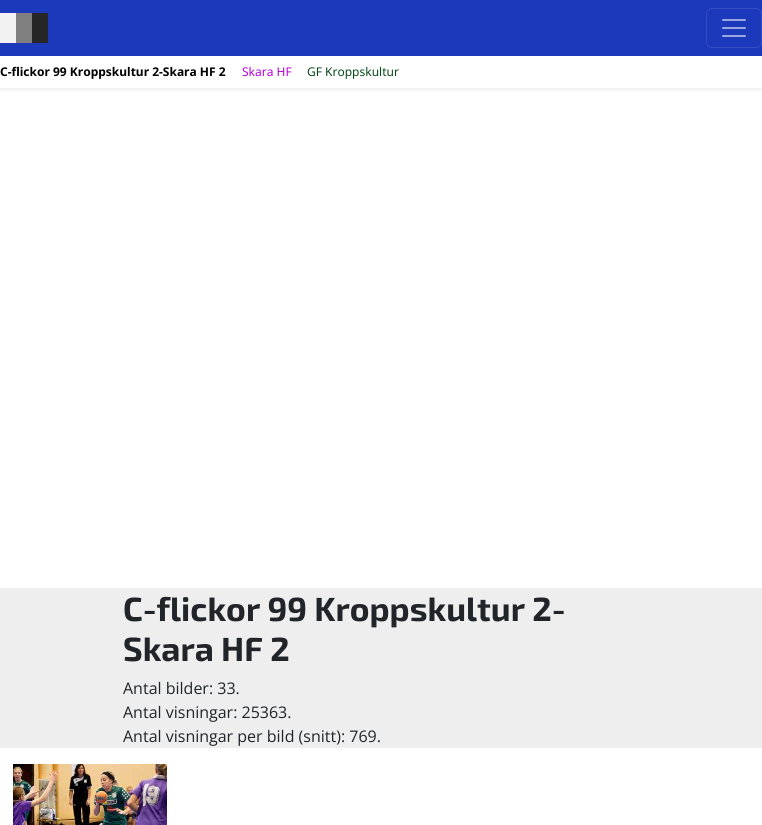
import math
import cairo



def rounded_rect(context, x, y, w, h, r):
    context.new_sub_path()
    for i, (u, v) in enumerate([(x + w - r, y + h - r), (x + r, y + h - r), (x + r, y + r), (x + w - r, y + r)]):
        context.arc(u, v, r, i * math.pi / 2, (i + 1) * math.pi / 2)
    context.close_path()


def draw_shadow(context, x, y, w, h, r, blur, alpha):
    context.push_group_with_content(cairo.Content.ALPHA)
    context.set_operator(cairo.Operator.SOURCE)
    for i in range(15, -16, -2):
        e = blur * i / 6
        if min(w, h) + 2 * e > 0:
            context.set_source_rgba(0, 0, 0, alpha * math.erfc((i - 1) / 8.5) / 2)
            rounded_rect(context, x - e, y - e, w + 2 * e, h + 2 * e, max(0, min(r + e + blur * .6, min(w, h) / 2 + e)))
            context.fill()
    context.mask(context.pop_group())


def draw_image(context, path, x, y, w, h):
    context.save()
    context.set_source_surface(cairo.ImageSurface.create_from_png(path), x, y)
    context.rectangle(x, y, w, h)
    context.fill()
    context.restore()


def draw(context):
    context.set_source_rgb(1, 1, 1)
    context.paint()
    context.save()
    context.rectangle(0, 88, 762, 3)
    context.clip()
    context.set_source_rgb(0, 0, 0)
    draw_shadow(context, 0, 58, 762, 32, 0, 2, 0.07)
    context.restore()
    context.set_source_rgb(28 / 255, 57 / 255, 187 / 255)
    context.rectangle(0, 0, 762, 56)
    context.fill()
    draw_image(context, "images/1.png", 0, 13, 48, 30)
    rounded_rect(context, 706.5, 8.5, 55, 39, 5.5)
    context.set_source_rgb(51 / 255, 77 / 255, 194 / 255)
    context.set_line_width(1)
    context.stroke()
    draw_image(context, "images/2.png", 722, 19, 24, 18)
    context.set_source_rgb(238 / 255, 238 / 255, 238 / 255)
    context.rectangle(0, 588, 762, 160)
    context.fill()
    draw_image(context, "images/3.png", 13, 764, 154, 61)
    context.select_font_face("Noto Sans", cairo.FontSlant.NORMAL, cairo.FontWeight.BOLD)
    context.set_font_size(12)
    context.set_source_rgb(0, 0, 0)
    context.move_to(0, 76)
    context.show_text("C-flickor 99 Kroppskultur 2-Skara HF 2")
    context.select_font_face("Noto Sans")
    context.set_source_rgb(183 / 255, 0, 219 / 255)
    context.move_to(242, 76)
    context.show_text("Skara HF")
    context.set_source_rgb(7 / 255, 73 / 255, 27 / 255)
    context.move_to(307, 76)
    context.show_text("GF Kroppskultur")
    context.select_font_face("Exo 2", cairo.FontSlant.NORMAL, cairo.FontWeight.BOLD)
    context.set_font_size(33.5)
    context.set_source_rgb(33 / 255, 37 / 255, 41 / 255)
    context.move_to(123, 621)
    context.show_text("C-flickor 99 Kroppskultur 2-")
    context.move_to(123, 661)
    context.show_text("Skara HF 2")
    context.select_font_face("Open Sans")
    context.set_font_size(16)
    context.move_to(123, 694)
    context.show_text("Antal bilder: 33.")
    context.move_to(123, 718)
    context.show_text("Antal visningar: 25363.")
    context.move_to(123, 742)
    context.show_text("Antal visningar per bild (snitt): 769.")


surface = cairo.ImageSurface(cairo.Format.RGB24, 762, 825)
context = cairo.Context(surface)
options = cairo.FontOptions()
options.set_hint_metrics(cairo.HintMetrics.OFF)
options.set_hint_style(cairo.HintStyle.NONE)
context.set_font_options(options)
context.set_miter_limit(4)
draw(context)
surface.write_to_png("out.png")
